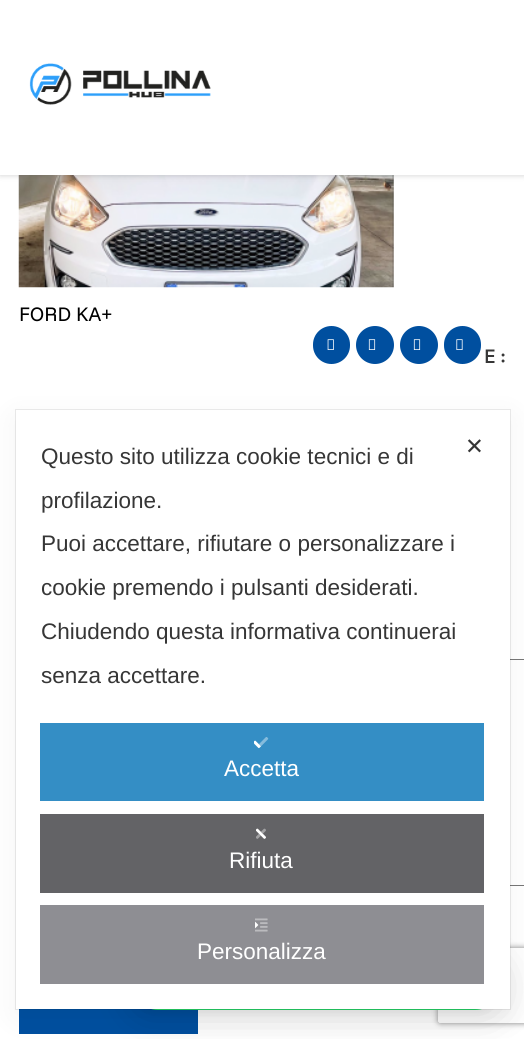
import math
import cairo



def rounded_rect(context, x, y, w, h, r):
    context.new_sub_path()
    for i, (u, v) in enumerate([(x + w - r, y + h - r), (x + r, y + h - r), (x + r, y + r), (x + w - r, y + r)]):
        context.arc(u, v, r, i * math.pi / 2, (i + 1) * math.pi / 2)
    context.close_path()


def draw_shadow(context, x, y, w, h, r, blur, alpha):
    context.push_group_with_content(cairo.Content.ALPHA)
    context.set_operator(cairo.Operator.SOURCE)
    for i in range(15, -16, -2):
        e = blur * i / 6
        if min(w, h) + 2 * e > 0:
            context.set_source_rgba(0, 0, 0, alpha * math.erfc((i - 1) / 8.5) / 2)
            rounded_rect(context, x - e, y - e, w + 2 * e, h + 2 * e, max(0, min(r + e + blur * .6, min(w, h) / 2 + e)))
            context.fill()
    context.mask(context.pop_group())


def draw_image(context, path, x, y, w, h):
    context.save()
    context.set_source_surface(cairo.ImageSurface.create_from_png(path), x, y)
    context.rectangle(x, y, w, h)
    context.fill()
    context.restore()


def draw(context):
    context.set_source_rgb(1, 1, 1)
    context.paint()
    draw_image(context, "images/2.png", 18, 175, 376, 113)
    context.set_source_rgb(0, 0, 0)
    draw_shadow(context, 0, 0, 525, 175, 0, 3, 0.2)
    context.set_source_rgb(1, 1, 1)
    context.rectangle(0, 0, 524, 175)
    context.fill()
    draw_image(context, "images/1.png", 29, 63, 182, 42)
    context.set_source_rgb(0, 79 / 255, 159 / 255)
    rounded_rect(context, 313, 326, 37, 38, 18.5)
    context.fill()
    draw_image(context, "images/3.png", 327, 339, 7, 11)
    context.arc(375, 345, 19, 0, 2 * math.pi)
    context.fill()
    draw_image(context, "images/4.png", 368, 339, 8, 11)
    context.arc(419, 345, 19, 0, 2 * math.pi)
    context.fill()
    draw_image(context, "images/4.png", 413, 339, 8, 11)
    rounded_rect(context, 444, 326, 37, 38, 18.5)
    context.fill()
    draw_image(context, "images/5.png", 456, 339, 7, 11)
    context.rectangle(19.5, 659.5, 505, 226)
    context.set_source_rgb(118 / 255, 118 / 255, 118 / 255)
    context.set_line_width(1)
    context.stroke()
    context.set_source_rgb(0, 79 / 255, 159 / 255)
    context.rectangle(19, 1009, 179, 25)
    context.fill()
    context.set_source_rgb(0, 0, 0)
    draw_shadow(context, 133, 963, 367, 50, 25, 20, 0.16)
    draw_shadow(context, 133, 961, 367, 50, 25, 4, 0.06)
    context.save()
    context.set_fill_rule(cairo.FillRule.EVEN_ODD)
    context.new_path()
    context.move_to(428, 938)
    context.line_to(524, 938)
    context.line_to(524, 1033)
    context.line_to(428, 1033)
    context.close_path()
    context.move_to(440.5, 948)
    context.line_to(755.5, 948)
    context.curve_to(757, 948, 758, 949, 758, 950.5)
    context.line_to(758, 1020.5)
    context.curve_to(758, 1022, 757, 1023, 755.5, 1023)
    context.line_to(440.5, 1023)
    context.curve_to(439, 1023, 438, 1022, 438, 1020.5)
    context.line_to(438, 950.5)
    context.curve_to(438, 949, 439, 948, 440.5, 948)
    context.close_path()
    context.clip()
    context.set_source_rgb(128 / 255, 128 / 255, 128 / 255)
    draw_shadow(context, 438, 948, 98, 75, 2.5, 3, 1)
    context.restore()
    context.set_source_rgb(37 / 255, 211 / 255, 102 / 255)
    rounded_rect(context, 133, 960, 367, 50, 25)
    context.fill()
    context.rectangle(15.5, 409.5, 495, 600)
    context.set_source_rgba(0, 0, 0, 0.08)
    context.stroke()
    context.set_source_rgb(0, 0, 0)
    draw_shadow(context, 16, 418, 494, 598, 0, 15, 0.05)
    context.set_source_rgb(1, 1, 1)
    context.rectangle(16, 410, 494, 599)
    context.fill()
    context.set_source_rgb(52 / 255, 142 / 255, 197 / 255)
    context.rectangle(40, 723, 444, 78)
    context.fill()
    draw_image(context, "images/6.png", 254, 737, 15, 12)
    context.set_source_rgb(99 / 255, 99 / 255, 102 / 255)
    context.rectangle(40, 814, 444, 79)
    context.fill()
    draw_image(context, "images/7.png", 256, 828, 10, 11)
    context.set_source_rgb(142 / 255, 142 / 255, 147 / 255)
    context.rectangle(40, 905, 444, 79)
    context.fill()
    draw_image(context, "images/8.png", 255, 918, 13, 14)
    context.select_font_face("Funnel Sans")
    context.set_font_size(20)
    context.set_source_rgb(0, 0, 0)
    context.move_to(19, 321)
    context.show_text("FORD KA+")
    context.select_font_face("Funnel Sans Medium")
    context.set_source_rgb(54 / 255, 54 / 255, 54 / 255)
    context.move_to(484, 363)
    context.show_text("E :")
    context.select_font_face("Liberation Sans")
    context.set_font_size(22.5)
    context.move_to(41, 464)
    context.show_text("Questo sito utilizza cookie tecnici e di")
    context.move_to(41, 508)
    context.show_text("profilazione.")
    context.move_to(41, 551)
    context.show_text("Puoi accettare, rifiutare o personalizzare i")
    context.move_to(41, 595)
    context.show_text("cookie premendo i pulsanti desiderati.")
    context.move_to(41, 639)
    context.show_text("Chiudendo questa informativa continuerai")
    context.move_to(41, 683)
    context.show_text("senza accettare.")
    context.set_source_rgb(1, 1, 1)
    context.move_to(224, 776)
    context.show_text("Accetta")
    context.move_to(229, 868)
    context.show_text("Rifiuta")
    context.move_to(197, 959)
    context.show_text("Personalizza")
    context.select_font_face("DejaVu Sans")
    context.set_source_rgb(54 / 255, 54 / 255, 54 / 255)
    context.move_to(465, 454)
    context.show_text("✕")


surface = cairo.ImageSurface(cairo.Format.RGB24, 524, 1039)
context = cairo.Context(surface)
options = cairo.FontOptions()
options.set_hint_metrics(cairo.HintMetrics.OFF)
options.set_hint_style(cairo.HintStyle.NONE)
context.set_font_options(options)
context.set_miter_limit(4)
draw(context)
surface.write_to_png("out.png")
